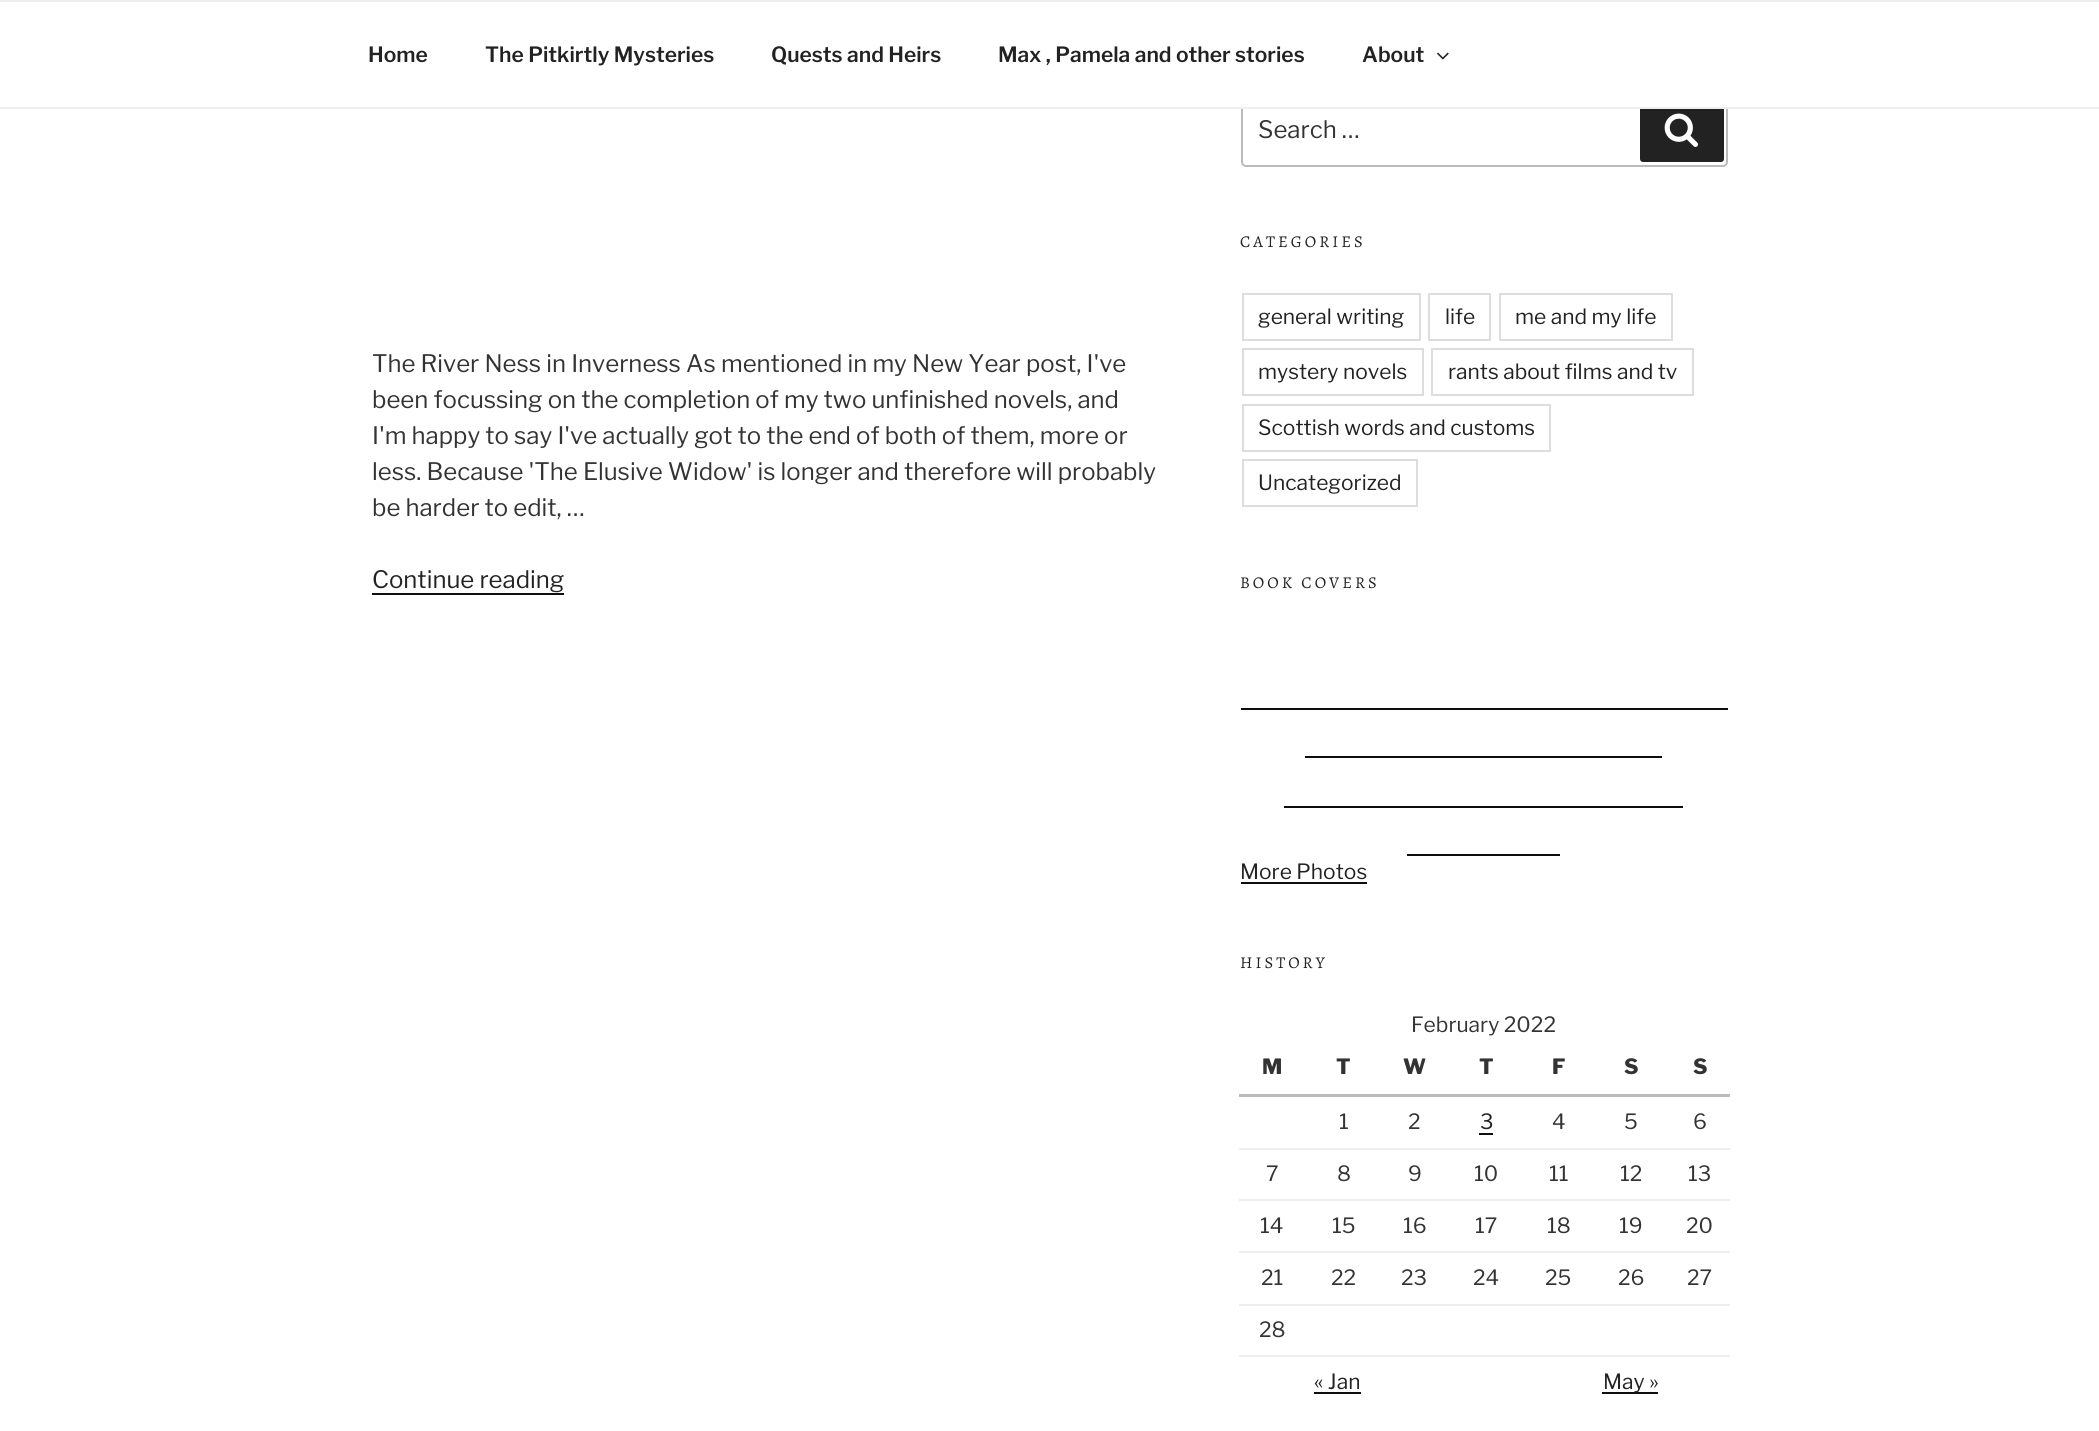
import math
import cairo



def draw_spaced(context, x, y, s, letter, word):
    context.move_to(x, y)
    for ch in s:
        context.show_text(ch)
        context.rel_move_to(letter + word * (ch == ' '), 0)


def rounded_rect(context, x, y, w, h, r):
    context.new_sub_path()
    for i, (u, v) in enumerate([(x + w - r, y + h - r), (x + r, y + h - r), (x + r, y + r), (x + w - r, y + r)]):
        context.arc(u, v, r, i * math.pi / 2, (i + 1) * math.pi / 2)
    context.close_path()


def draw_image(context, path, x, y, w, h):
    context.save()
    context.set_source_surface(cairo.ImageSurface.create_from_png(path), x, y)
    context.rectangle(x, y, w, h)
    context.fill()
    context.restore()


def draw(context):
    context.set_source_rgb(1, 1, 1)
    context.paint()
    rounded_rect(context, 1242, 96, 485, 70, 4)
    context.set_source_rgb(187 / 255, 187 / 255, 187 / 255)
    context.stroke()
    context.set_source_rgb(34 / 255, 34 / 255, 34 / 255)
    rounded_rect(context, 1640, 99, 84, 63, 3)
    context.fill()
    context.set_source_rgb(1, 1, 1)
    context.rectangle(1241, 95, 487, 12)
    context.fill()
    context.set_source_rgb(238 / 255, 238 / 255, 238 / 255)
    context.rectangle(0, 0, 2099, 2)
    context.fill()
    context.rectangle(0, 107, 2099, 2)
    context.fill()
    draw_image(context, "images/1.png", 1437, 52, 12, 8)
    context.set_source_rgb(15 / 255, 15 / 255, 15 / 255)
    context.rectangle(372, 593, 192, 2)
    context.fill()
    draw_image(context, "images/2.png", 1664, 113, 34, 34)
    context.rectangle(1243, 294, 177, 46)
    context.set_source_rgb(221 / 255, 221 / 255, 221 / 255)
    context.stroke()
    context.rectangle(1429, 294, 61, 46)
    context.stroke()
    context.rectangle(1500, 294, 172, 46)
    context.stroke()
    context.rectangle(1243, 349, 180, 46)
    context.stroke()
    context.rectangle(1432, 349, 261, 46)
    context.stroke()
    context.rectangle(1243, 405, 307, 46)
    context.stroke()
    context.rectangle(1243, 460, 174, 46)
    context.stroke()
    context.set_source_rgb(15 / 255, 15 / 255, 15 / 255)
    context.rectangle(1241, 708, 487, 2)
    context.fill()
    context.rectangle(1305, 756, 357, 2)
    context.fill()
    context.rectangle(1284, 806, 399, 2)
    context.fill()
    context.rectangle(1407, 854, 153, 2)
    context.fill()
    context.rectangle(1241, 882, 126, 2)
    context.fill()
    context.set_source_rgb(187 / 255, 187 / 255, 187 / 255)
    context.rectangle(1239, 1094, 491, 3)
    context.fill()
    context.set_source_rgb(238 / 255, 238 / 255, 238 / 255)
    context.rectangle(1239, 1148, 491, 2)
    context.fill()
    context.set_source_rgb(15 / 255, 15 / 255, 15 / 255)
    context.rectangle(1479, 1133, 14, 2)
    context.fill()
    context.set_source_rgb(238 / 255, 238 / 255, 238 / 255)
    context.rectangle(1239, 1199, 491, 2)
    context.fill()
    context.rectangle(1239, 1251, 491, 2)
    context.fill()
    context.rectangle(1239, 1304, 491, 2)
    context.fill()
    context.rectangle(1239, 1355, 491, 2)
    context.fill()
    context.set_source_rgb(15 / 255, 15 / 255, 15 / 255)
    context.rectangle(1314, 1392, 47, 2)
    context.fill()
    context.rectangle(1602, 1392, 56, 2)
    context.fill()
    context.select_font_face("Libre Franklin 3 Thin")
    context.set_font_size(21)
    context.set_source_rgb(34 / 255, 34 / 255, 34 / 255)
    context.move_to(368, 62)
    context.show_text("Home")
    context.move_to(485, 62)
    context.show_text("The Pitkirtly Mysteries")
    context.move_to(771, 62)
    context.show_text("Quests and Heirs")
    context.move_to(998, 62)
    context.show_text("Max , Pamela and other stories")
    context.move_to(1362, 62)
    context.show_text("About")
    context.select_font_face("Libre Franklin Thin")
    context.set_font_size(24)
    context.set_source_rgb(51 / 255, 51 / 255, 51 / 255)
    context.move_to(372, 372)
    context.show_text("The River Ness in Inverness As mentioned in my New Year post, I've")
    context.move_to(372, 408)
    context.show_text("been focussing on the completion of my two unfinished novels, and")
    context.move_to(372, 444)
    context.show_text("I'm happy to say I've actually got to the end of both of them, more or")
    context.move_to(372, 480)
    context.show_text("less. Because 'The Elusive Widow' is longer and therefore will probably")
    context.move_to(372, 516)
    context.show_text("be harder to edit, …")
    context.set_source_rgb(34 / 255, 34 / 255, 34 / 255)
    context.move_to(372, 588)
    context.show_text("Continue reading")
    context.set_source_rgb(51 / 255, 51 / 255, 51 / 255)
    context.move_to(1258, 138)
    context.show_text("Search …")
    context.select_font_face("Alegreya")
    context.set_font_size(16.5)
    context.set_source_rgb(34 / 255, 34 / 255, 34 / 255)
    draw_spaced(context, 1240, 247, "CATEGORIES", 3, 0)
    context.select_font_face("Libre Franklin Thin")
    context.set_font_size(21)
    context.move_to(1258, 324)
    context.show_text("general writing")
    context.move_to(1445, 324)
    context.show_text("life")
    context.move_to(1515, 324)
    context.show_text("me and my life")
    context.move_to(1258, 379)
    context.show_text("mystery novels")
    context.move_to(1448, 379)
    context.show_text("rants about films and tv")
    context.move_to(1258, 435)
    context.show_text("Scottish words and customs")
    context.move_to(1258, 490)
    context.show_text("Uncategorized")
    context.select_font_face("Alegreya")
    context.set_font_size(16.5)
    draw_spaced(context, 1240, 588, "BOOK COVERS", 3, 0)
    context.select_font_face("Libre Franklin Thin")
    context.set_font_size(21)
    context.move_to(1240, 879)
    context.show_text("More Photos")
    context.select_font_face("Alegreya")
    context.set_font_size(16.5)
    draw_spaced(context, 1240, 968, "HISTORY", 3, 0)
    context.select_font_face("Libre Franklin Thin")
    context.set_font_size(21)
    context.set_source_rgb(51 / 255, 51 / 255, 51 / 255)
    context.move_to(1411, 1032)
    context.show_text("February 2022")
    context.select_font_face("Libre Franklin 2 Thin")
    context.move_to(1262, 1074)
    context.show_text("M")
    context.move_to(1336, 1074)
    context.show_text("T")
    context.move_to(1403, 1074)
    context.show_text("W")
    context.move_to(1479, 1074)
    context.show_text("T")
    context.move_to(1552, 1074)
    context.show_text("F")
    context.move_to(1624, 1074)
    context.show_text("S")
    context.move_to(1693, 1074)
    context.show_text("S")
    context.select_font_face("Libre Franklin Thin")
    context.move_to(1339, 1129)
    context.show_text("1")
    context.move_to(1408, 1129)
    context.show_text("2")
    context.set_source_rgb(34 / 255, 34 / 255, 34 / 255)
    context.move_to(1480, 1129)
    context.show_text("3")
    context.set_source_rgb(51 / 255, 51 / 255, 51 / 255)
    context.move_to(1552, 1129)
    context.show_text("4")
    context.move_to(1624, 1129)
    context.show_text("5")
    context.move_to(1693, 1129)
    context.show_text("6")
    context.move_to(1266, 1181)
    context.show_text("7")
    context.move_to(1337, 1181)
    context.show_text("8")
    context.move_to(1408, 1181)
    context.show_text("9")
    context.move_to(1474, 1181)
    context.show_text("10")
    context.move_to(1549, 1181)
    context.show_text("11")
    context.move_to(1620, 1181)
    context.show_text("12")
    context.move_to(1688, 1181)
    context.show_text("13")
    context.move_to(1260, 1233)
    context.show_text("14")
    context.move_to(1332, 1233)
    context.show_text("15")
    context.move_to(1403, 1233)
    context.show_text("16")
    context.move_to(1475, 1233)
    context.show_text("17")
    context.move_to(1547, 1233)
    context.show_text("18")
    context.move_to(1619, 1233)
    context.show_text("19")
    context.move_to(1686, 1233)
    context.show_text("20")
    context.move_to(1261, 1285)
    context.show_text("21")
    context.move_to(1331, 1285)
    context.show_text("22")
    context.move_to(1401, 1285)
    context.show_text("23")
    context.move_to(1473, 1285)
    context.show_text("24")
    context.move_to(1545, 1285)
    context.show_text("25")
    context.move_to(1618, 1285)
    context.show_text("26")
    context.move_to(1687, 1285)
    context.show_text("27")
    context.move_to(1259, 1337)
    context.show_text("28")
    context.set_source_rgb(34 / 255, 34 / 255, 34 / 255)
    context.move_to(1314, 1389)
    context.show_text("« Jan")
    context.move_to(1603, 1389)
    context.show_text("May »")


surface = cairo.ImageSurface(cairo.Format.RGB24, 2099, 1431)
context = cairo.Context(surface)
options = cairo.FontOptions()
options.set_hint_metrics(cairo.HintMetrics.OFF)
options.set_hint_style(cairo.HintStyle.NONE)
context.set_font_options(options)
context.set_miter_limit(4)
draw(context)
surface.write_to_png("out.png")
